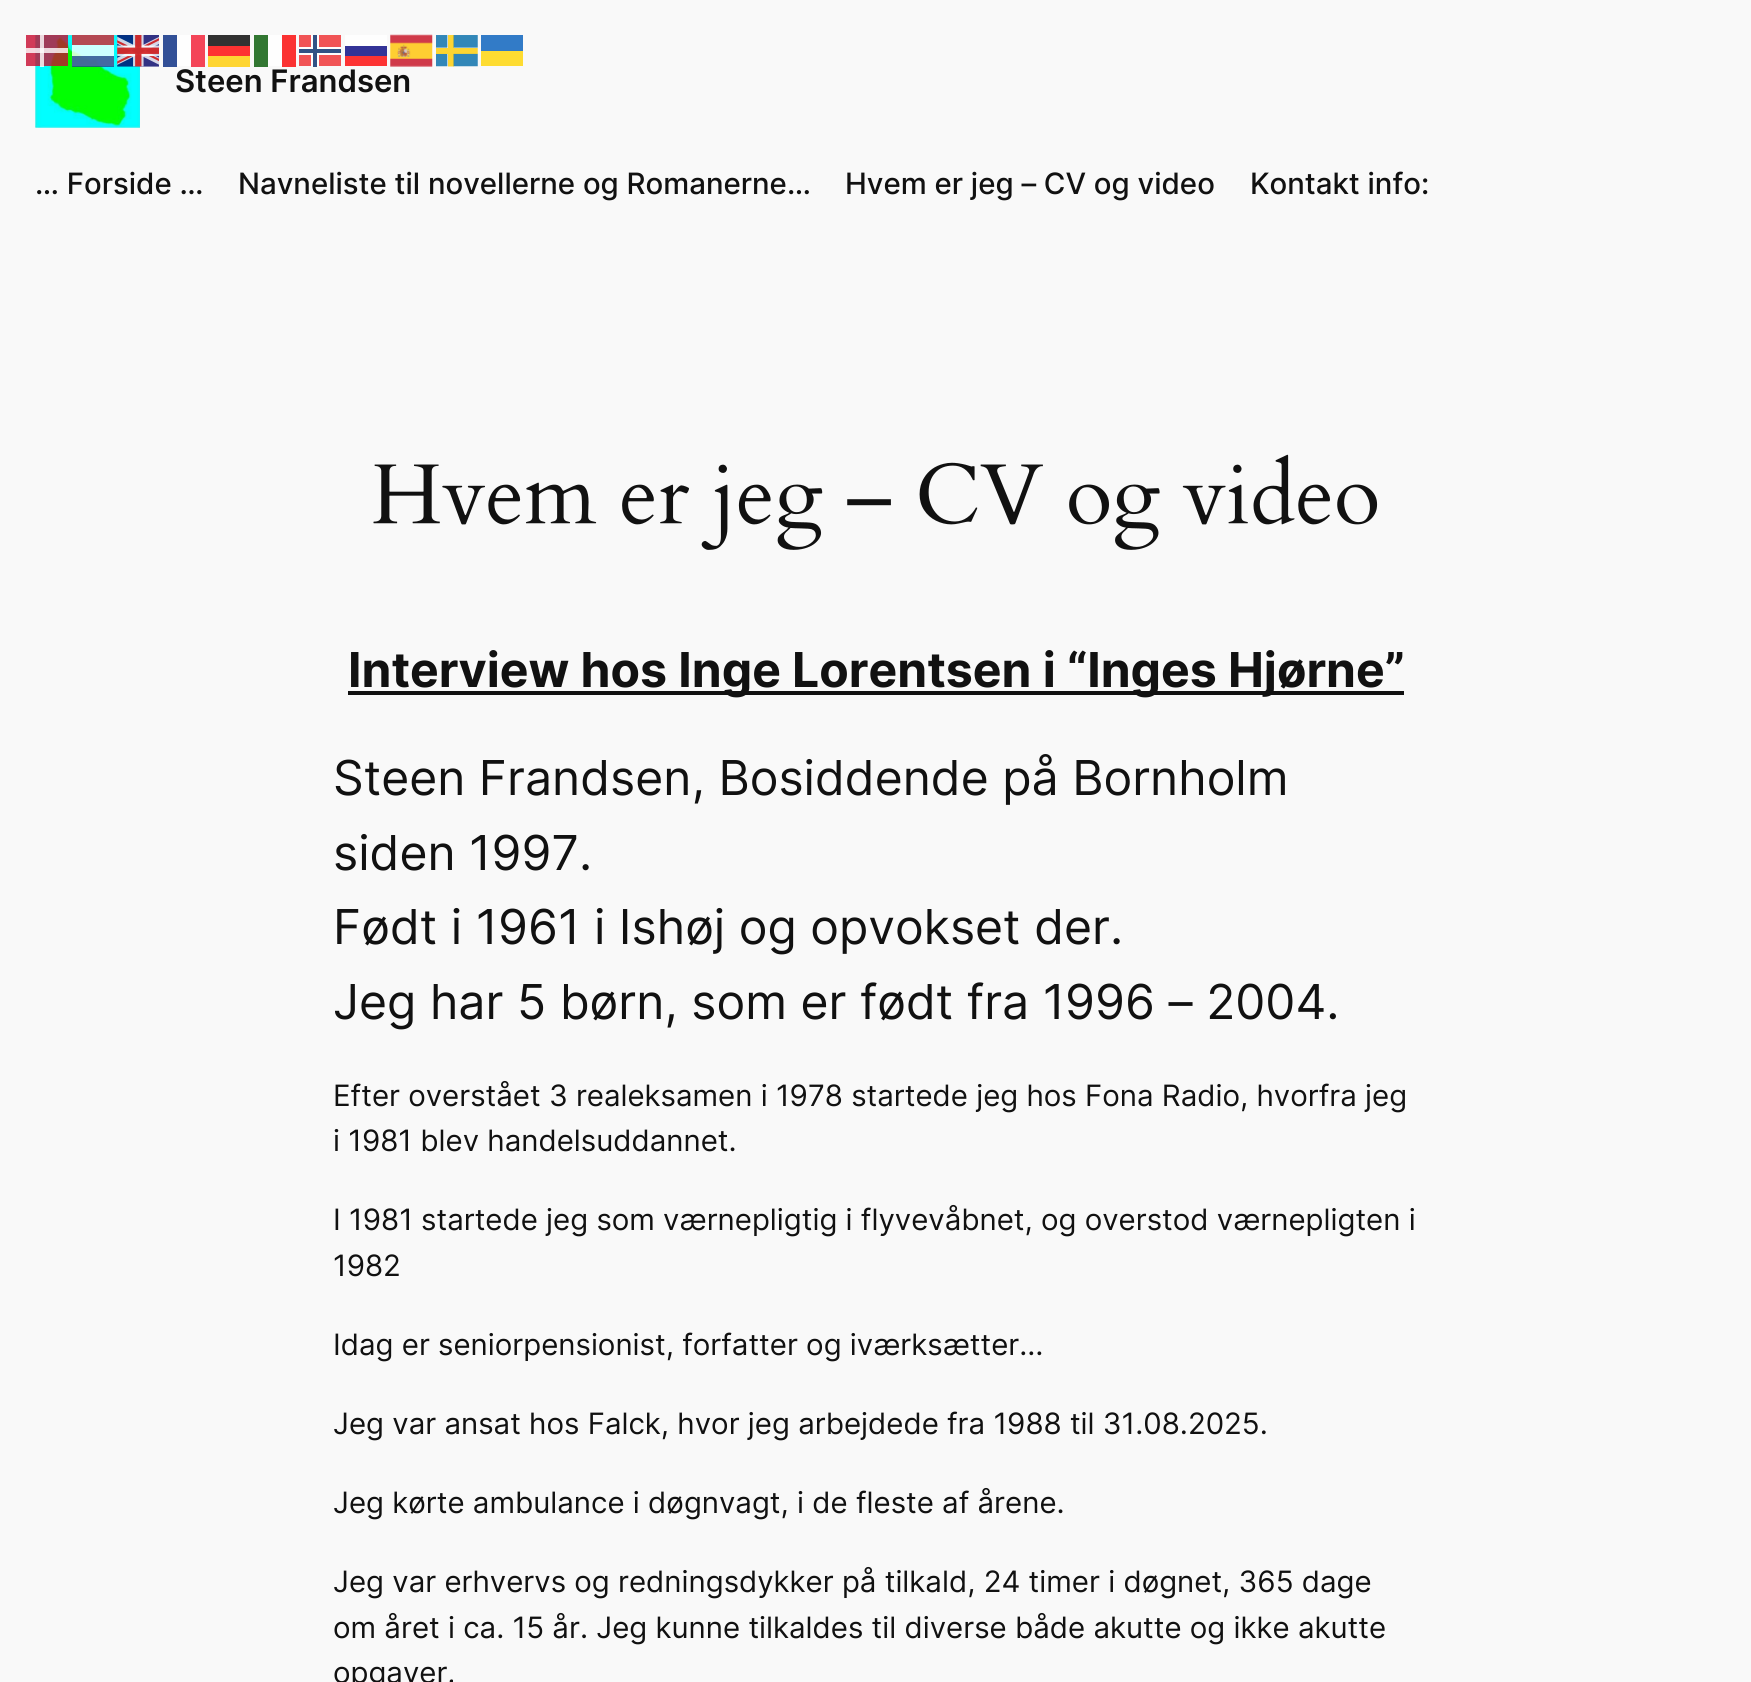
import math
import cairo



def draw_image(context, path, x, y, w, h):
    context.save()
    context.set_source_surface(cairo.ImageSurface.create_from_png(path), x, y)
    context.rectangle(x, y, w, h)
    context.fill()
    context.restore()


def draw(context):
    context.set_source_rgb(249 / 255, 249 / 255, 249 / 255)
    context.paint()
    draw_image(context, "images/4.png", 35, 35, 105, 93)
    context.set_source_rgba(198 / 255, 12 / 255, 48 / 255, 0.8)
    context.rectangle(26, 35, 42, 31)
    context.fill()
    draw_image(context, "images/1.png", 390, 34, 43, 33)
    context.set_source_rgba(1, 1, 1, 0.8)
    context.rectangle(40, 35, 4, 32)
    context.fill()
    context.rectangle(72, 35, 42, 31)
    context.fill()
    context.set_source_rgba(174 / 255, 28 / 255, 40 / 255, 0.8)
    context.rectangle(72, 35, 42, 10)
    context.fill()
    draw_image(context, "images/2.png", 117, 35, 42, 32)
    context.set_source_rgb(50 / 255, 80 / 255, 151 / 255)
    context.rectangle(163, 35, 14, 32)
    context.fill()
    context.set_source_rgb(254 / 255, 254 / 255, 254 / 255)
    context.rectangle(177, 35, 14, 31)
    context.fill()
    context.set_source_rgb(244 / 255, 69 / 255, 88 / 255)
    context.rectangle(191, 35, 14, 32)
    context.fill()
    context.set_source_rgb(50 / 255, 50 / 255, 50 / 255)
    context.rectangle(208, 35, 42, 11)
    context.fill()
    context.set_source_rgb(50 / 255, 119 / 255, 50 / 255)
    context.rectangle(254, 35, 14, 32)
    context.fill()
    context.set_source_rgb(254 / 255, 254 / 255, 254 / 255)
    context.rectangle(268, 35, 14, 31)
    context.fill()
    context.set_source_rgb(251 / 255, 50 / 255, 50 / 255)
    context.rectangle(282, 35, 14, 32)
    context.fill()
    context.set_source_rgb(241 / 255, 84 / 255, 86 / 255)
    context.rectangle(299, 35, 42, 31)
    context.fill()
    context.set_source_rgb(254 / 255, 254 / 255, 254 / 255)
    context.rectangle(311, 35, 8, 32)
    context.fill()
    context.set_source_rgb(254 / 255, 50 / 255, 50 / 255)
    context.rectangle(208, 46, 42, 10)
    context.fill()
    context.set_source_rgb(254 / 255, 254 / 255, 254 / 255)
    context.rectangle(299, 47, 42, 8)
    context.fill()
    context.set_source_rgb(50 / 255, 82 / 255, 133 / 255)
    context.rectangle(313, 35, 4, 32)
    context.fill()
    context.set_source_rgb(254 / 255, 254 / 255, 254 / 255)
    context.rectangle(345, 35, 42, 11)
    context.fill()
    draw_image(context, "images/3.png", 436, 35, 42, 32)
    context.set_source_rgb(50 / 255, 123 / 255, 199 / 255)
    context.rectangle(481, 35, 42, 16)
    context.fill()
    context.set_source_rgba(1, 1, 1, 0.8)
    context.rectangle(26, 48, 42, 5)
    context.fill()
    context.set_source_rgb(51 / 255, 51 / 255, 151 / 255)
    context.rectangle(345, 46, 42, 10)
    context.fill()
    context.set_source_rgba(33 / 255, 70 / 255, 139 / 255, 0.8)
    context.rectangle(72, 56, 42, 11)
    context.fill()
    context.set_source_rgb(254 / 255, 213 / 255, 50 / 255)
    context.rectangle(208, 56, 42, 11)
    context.fill()
    context.set_source_rgb(50 / 255, 82 / 255, 133 / 255)
    context.rectangle(299, 49, 42, 4)
    context.fill()
    context.set_source_rgb(253 / 255, 51 / 255, 51 / 255)
    context.rectangle(345, 56, 42, 10)
    context.fill()
    context.set_source_rgb(254 / 255, 220 / 255, 50 / 255)
    context.rectangle(481, 51, 42, 15)
    context.fill()
    draw_image(context, "images/5.png", 373, 454, 1005, 96)
    context.set_source_rgb(17 / 255, 17 / 255, 17 / 255)
    context.rectangle(348, 691, 1056, 4)
    context.fill()
    context.select_font_face("Inter SemiBold")
    context.set_font_size(31)
    context.move_to(175, 92)
    context.show_text("Steen Frandsen")
    context.select_font_face("Inter Medium")
    context.set_font_size(29.4)
    context.move_to(35, 194)
    context.show_text("… Forside …")
    context.move_to(238, 194)
    context.show_text("Navneliste til novellerne og Romanerne…")
    context.move_to(845, 194)
    context.show_text("Hvem er jeg – CV og video")
    context.move_to(1250, 194)
    context.show_text("Kontakt info:")
    context.select_font_face("Inter", cairo.FontSlant.NORMAL, cairo.FontWeight.BOLD)
    context.set_font_size(48.1)
    context.move_to(348, 687)
    context.show_text("Interview hos Inge Lorentsen i “Inges Hjørne”")
    context.select_font_face("Inter")
    context.move_to(333, 795)
    context.show_text("Steen Frandsen, Bosiddende på Bornholm")
    context.move_to(333, 870)
    context.show_text("siden 1997.")
    context.move_to(333, 944)
    context.show_text("Født i 1961 i Ishøj og opvokset der.")
    context.move_to(333, 1019)
    context.show_text("Jeg har 5 børn, som er født fra 1996 – 2004.")
    context.set_font_size(29.4)
    context.move_to(333, 1106)
    context.show_text("Efter overstået 3 realeksamen i 1978 startede jeg hos Fona Radio, hvorfra jeg")
    context.move_to(333, 1151)
    context.show_text("i 1981 blev handelsuddannet.")
    context.move_to(333, 1230)
    context.show_text("I 1981 startede jeg som værnepligtig i flyvevåbnet, og overstod værnepligten i")
    context.move_to(333, 1276)
    context.show_text("1982")
    context.move_to(333, 1355)
    context.show_text("Idag er seniorpensionist, forfatter og iværksætter…")
    context.move_to(333, 1434)
    context.show_text("Jeg var ansat hos Falck, hvor jeg arbejdede fra 1988 til 31.08.2025.")
    context.move_to(333, 1513)
    context.show_text("Jeg kørte ambulance i døgnvagt, i de fleste af årene.")
    context.move_to(333, 1592)
    context.show_text("Jeg var erhvervs og redningsdykker på tilkald, 24 timer i døgnet, 365 dage")
    context.move_to(333, 1638)
    context.show_text("om året i ca. 15 år. Jeg kunne tilkaldes til diverse både akutte og ikke akutte")
    context.move_to(333, 1683)
    context.show_text("opgaver.")


surface = cairo.ImageSurface(cairo.Format.RGB24, 1751, 1682)
context = cairo.Context(surface)
options = cairo.FontOptions()
options.set_hint_metrics(cairo.HintMetrics.OFF)
options.set_hint_style(cairo.HintStyle.NONE)
context.set_font_options(options)
context.set_miter_limit(4)
draw(context)
surface.write_to_png("out.png")
